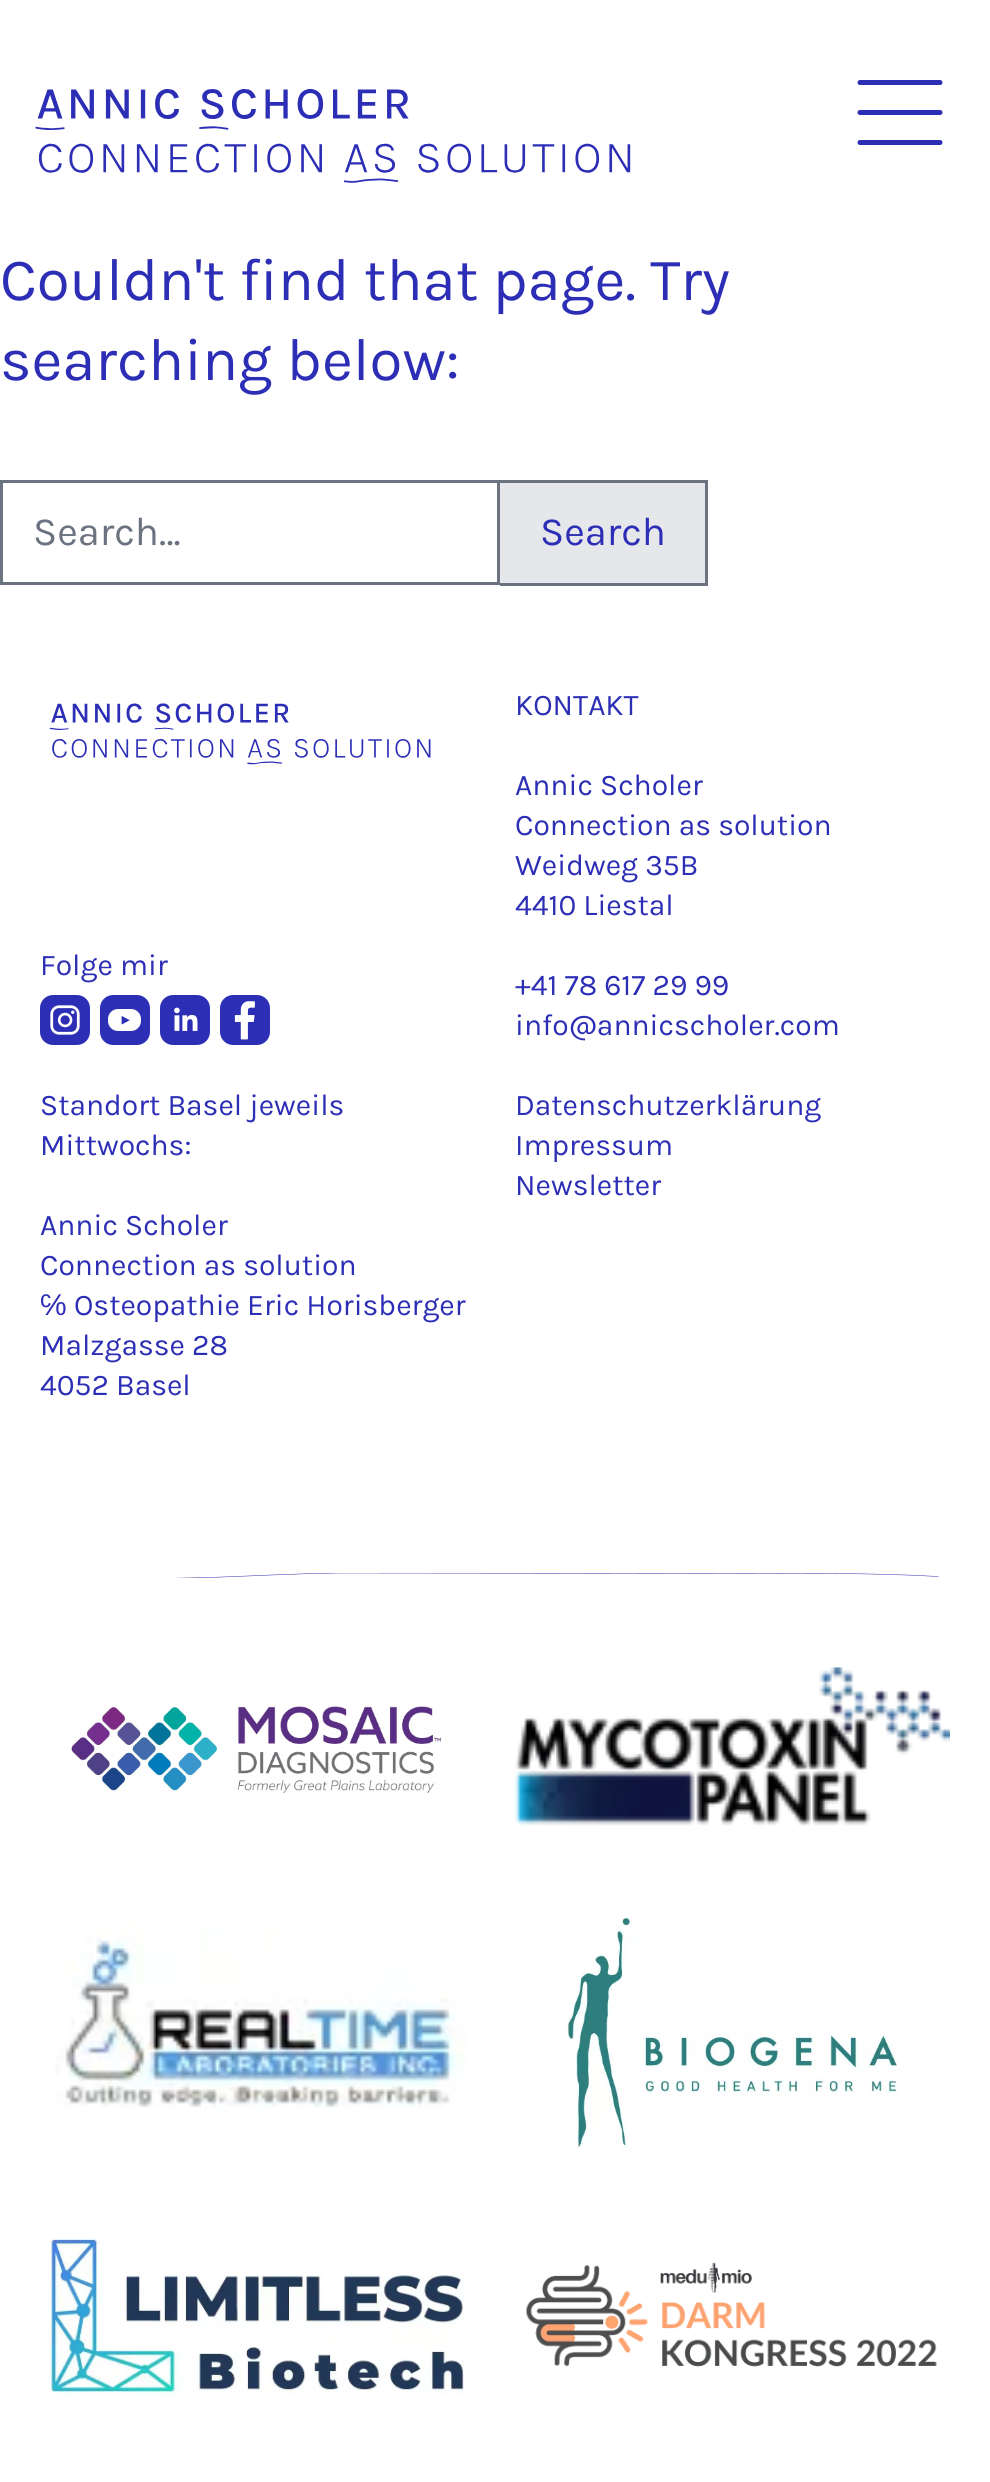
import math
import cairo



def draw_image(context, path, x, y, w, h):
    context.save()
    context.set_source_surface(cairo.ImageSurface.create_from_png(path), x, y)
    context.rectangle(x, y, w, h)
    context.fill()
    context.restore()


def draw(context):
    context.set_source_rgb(1, 1, 1)
    context.paint()
    draw_image(context, "images/1.png", 35, 89, 596, 94)
    context.new_path()
    context.move_to(860, 82.5)
    context.line_to(940, 82.5)
    context.move_to(860, 112.5)
    context.line_to(940, 112.5)
    context.move_to(860, 142.5)
    context.line_to(940, 142.5)
    context.set_source_rgb(45 / 255, 46 / 255, 182 / 255)
    context.set_line_width(5)
    context.set_line_cap(cairo.LineCap.ROUND)
    context.set_line_join(cairo.LineJoin.ROUND)
    context.stroke()
    context.rectangle(1.5, 481.5, 497, 102)
    context.set_source_rgb(107 / 255, 114 / 255, 128 / 255)
    context.set_line_width(3)
    context.set_line_cap(cairo.LineCap.BUTT)
    context.set_line_join(cairo.LineJoin.MITER)
    context.stroke()
    context.set_source_rgb(229 / 255, 231 / 255, 235 / 255)
    context.rectangle(500, 483, 205, 100)
    context.fill()
    context.set_source_rgb(107 / 255, 114 / 255, 128 / 255)
    context.rectangle(500, 480, 208, 3)
    context.fill()
    context.rectangle(705, 480, 3, 105)
    context.fill()
    context.rectangle(500, 583, 208, 3)
    context.fill()
    draw_image(context, "images/2.png", 49, 703, 382, 62)
    draw_image(context, "images/3.png", 40, 995, 50, 50)
    draw_image(context, "images/4.png", 100, 995, 50, 50)
    draw_image(context, "images/5.png", 160, 995, 50, 50)
    draw_image(context, "images/6.png", 220, 995, 50, 50)
    context.save()
    context.rectangle(40, 1573, 910, 5)
    context.clip()
    context.new_path()
    context.move_to(938.5, 1576.5)
    context.curve_to(868, 1572.5, 798, 1573.5, 727.5, 1573.5)
    context.line_to(340, 1573)
    context.curve_to(296.5, 1573.5, 252.5, 1576, 209, 1577.5)
    context.curve_to(156.5, 1579, 104, 1579, 51.5, 1578.5)
    context.set_source_rgb(45 / 255, 46 / 255, 175 / 255)
    context.set_line_width(0.5)
    context.stroke()
    context.restore()
    draw_image(context, "images/7.png", 71, 1706, 371, 87)
    draw_image(context, "images/8.png", 515, 1667, 435, 159)
    draw_image(context, "images/9.png", 55, 1923, 412, 185)
    draw_image(context, "images/10.png", 566, 1916, 333, 232)
    draw_image(context, "images/11.png", 47, 2238, 418, 158)
    draw_image(context, "images/12.png", 525, 2262, 412, 105)
    context.select_font_face("Karla")
    context.set_font_size(60)
    context.set_source_rgb(45 / 255, 46 / 255, 182 / 255)
    context.move_to(0, 300)
    context.show_text("Couldn't find that page. Try")
    context.move_to(0, 380)
    context.show_text("searching below:")
    context.set_font_size(40)
    context.set_source_rgb(107 / 255, 114 / 255, 128 / 255)
    context.move_to(33, 545)
    context.show_text("Search…")
    context.set_source_rgb(45 / 255, 46 / 255, 182 / 255)
    context.move_to(540, 545)
    context.show_text("Search")
    context.set_font_size(30)
    context.move_to(40, 975)
    context.show_text("Folge mir")
    context.move_to(515, 715)
    context.show_text("KONTAKT")
    context.move_to(515, 795)
    context.show_text("Annic Scholer")
    context.move_to(515, 835)
    context.show_text("Connection as solution")
    context.move_to(515, 875)
    context.show_text("Weidweg 35B")
    context.move_to(515, 915)
    context.show_text("4410 Liestal")
    context.move_to(515, 995)
    context.show_text("+41 78 617 29 99")
    context.move_to(515, 1035)
    context.show_text("info@annicscholer.com")
    context.move_to(40, 1115)
    context.show_text("Standort Basel jeweils")
    context.move_to(40, 1155)
    context.show_text("Mittwochs:")
    context.move_to(40, 1235)
    context.show_text("Annic Scholer")
    context.move_to(40, 1275)
    context.show_text("Connection as solution")
    context.select_font_face("Liberation Sans")
    context.move_to(40, 1315)
    context.show_text("℅")
    context.select_font_face("Karla")
    context.move_to(74, 1315)
    context.show_text("Osteopathie Eric Horisberger")
    context.move_to(40, 1355)
    context.show_text("Malzgasse 28")
    context.move_to(40, 1395)
    context.show_text("4052 Basel")
    context.move_to(515, 1115)
    context.show_text("Datenschutzerklärung")
    context.move_to(515, 1155)
    context.show_text("Impressum")
    context.move_to(515, 1195)
    context.show_text("Newsletter")


surface = cairo.ImageSurface(cairo.Format.RGB24, 990, 2482)
context = cairo.Context(surface)
options = cairo.FontOptions()
options.set_hint_metrics(cairo.HintMetrics.OFF)
options.set_hint_style(cairo.HintStyle.NONE)
context.set_font_options(options)
context.set_miter_limit(4)
draw(context)
surface.write_to_png("out.png")
